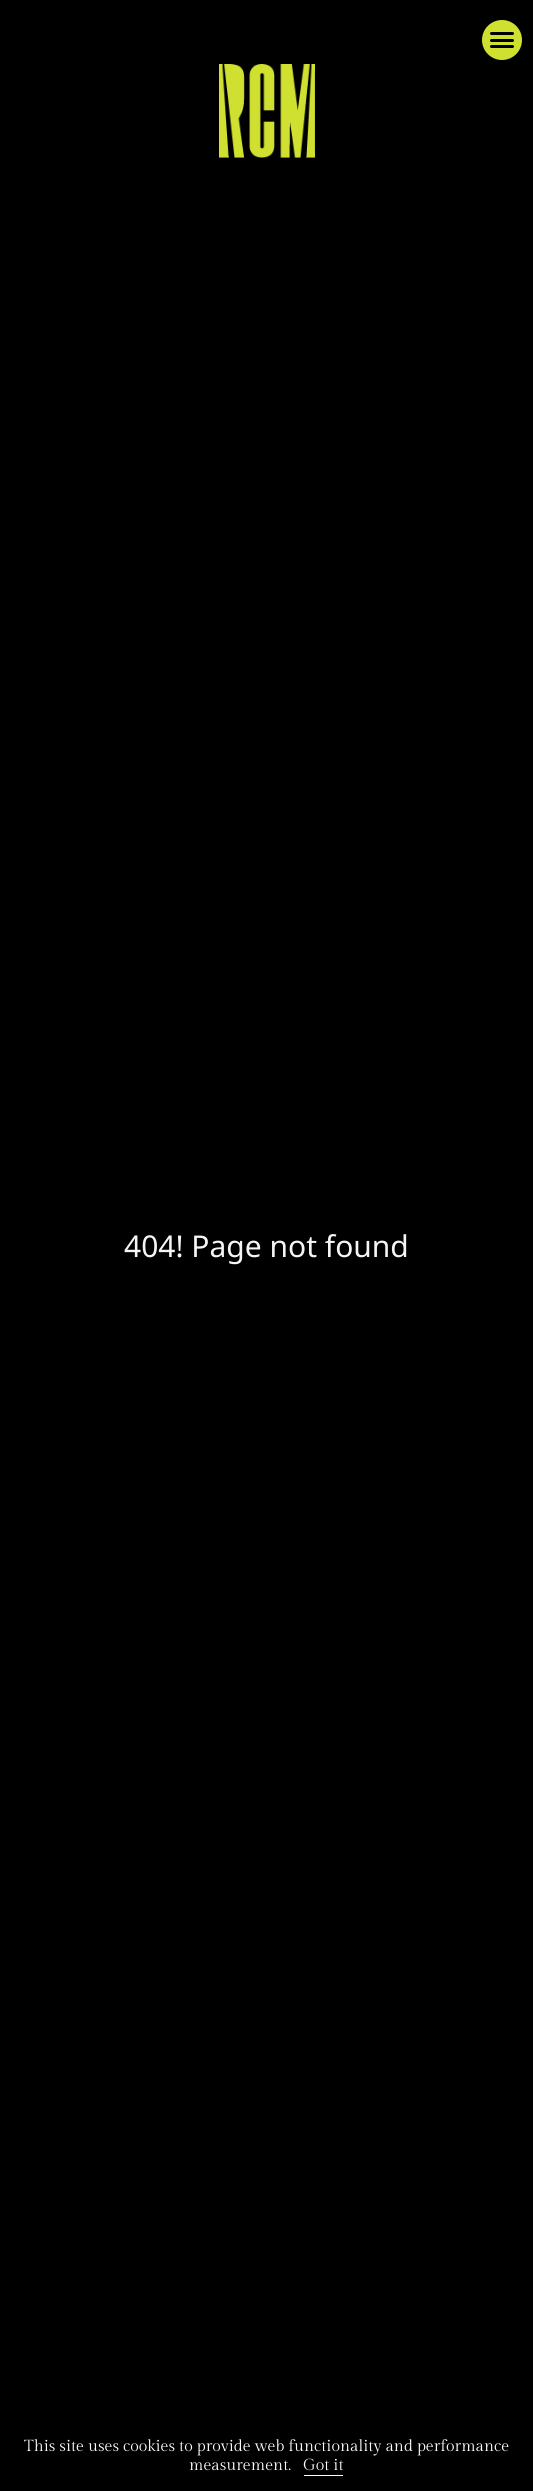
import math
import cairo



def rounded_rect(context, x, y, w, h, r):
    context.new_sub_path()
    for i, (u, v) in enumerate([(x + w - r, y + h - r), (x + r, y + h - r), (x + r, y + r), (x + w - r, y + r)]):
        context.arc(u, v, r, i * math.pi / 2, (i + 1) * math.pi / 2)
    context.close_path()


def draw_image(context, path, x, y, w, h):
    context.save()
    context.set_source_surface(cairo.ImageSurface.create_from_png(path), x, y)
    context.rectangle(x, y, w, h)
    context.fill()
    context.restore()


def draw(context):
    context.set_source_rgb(0, 0, 0)
    context.paint()
    context.set_source_rgb(207 / 255, 224 / 255, 49 / 255)
    context.arc(502, 40, 20, 0, 2 * math.pi)
    context.fill()
    context.set_source_rgb(0, 0, 0)
    rounded_rect(context, 490, 32, 24, 3, 1.5)
    context.fill()
    rounded_rect(context, 490, 39, 24, 3, 1.5)
    context.fill()
    rounded_rect(context, 490, 45, 24, 3, 1.5)
    context.fill()
    draw_image(context, "images/1.png", 219, 64, 96, 94)
    context.set_source_rgb(1, 1, 1)
    context.rectangle(304, 2475, 39, 1)
    context.fill()
    context.select_font_face("Noto Sans")
    context.set_font_size(30)
    context.set_source_rgb(244 / 255, 245 / 255, 245 / 255)
    context.move_to(124, 1257)
    context.show_text("404! Page not found")
    context.select_font_face("Gilda Display")
    context.set_font_size(16)
    context.set_source_rgb(1, 1, 1)
    context.move_to(24, 2451)
    context.show_text("This site uses cookies to provide web functionality and performance")
    context.move_to(189, 2470)
    context.show_text("measurement.")
    context.move_to(303, 2470)
    context.show_text("Got it")


surface = cairo.ImageSurface(cairo.Format.RGB24, 533, 2491)
context = cairo.Context(surface)
options = cairo.FontOptions()
options.set_hint_metrics(cairo.HintMetrics.OFF)
options.set_hint_style(cairo.HintStyle.NONE)
context.set_font_options(options)
context.set_miter_limit(4)
draw(context)
surface.write_to_png("out.png")
